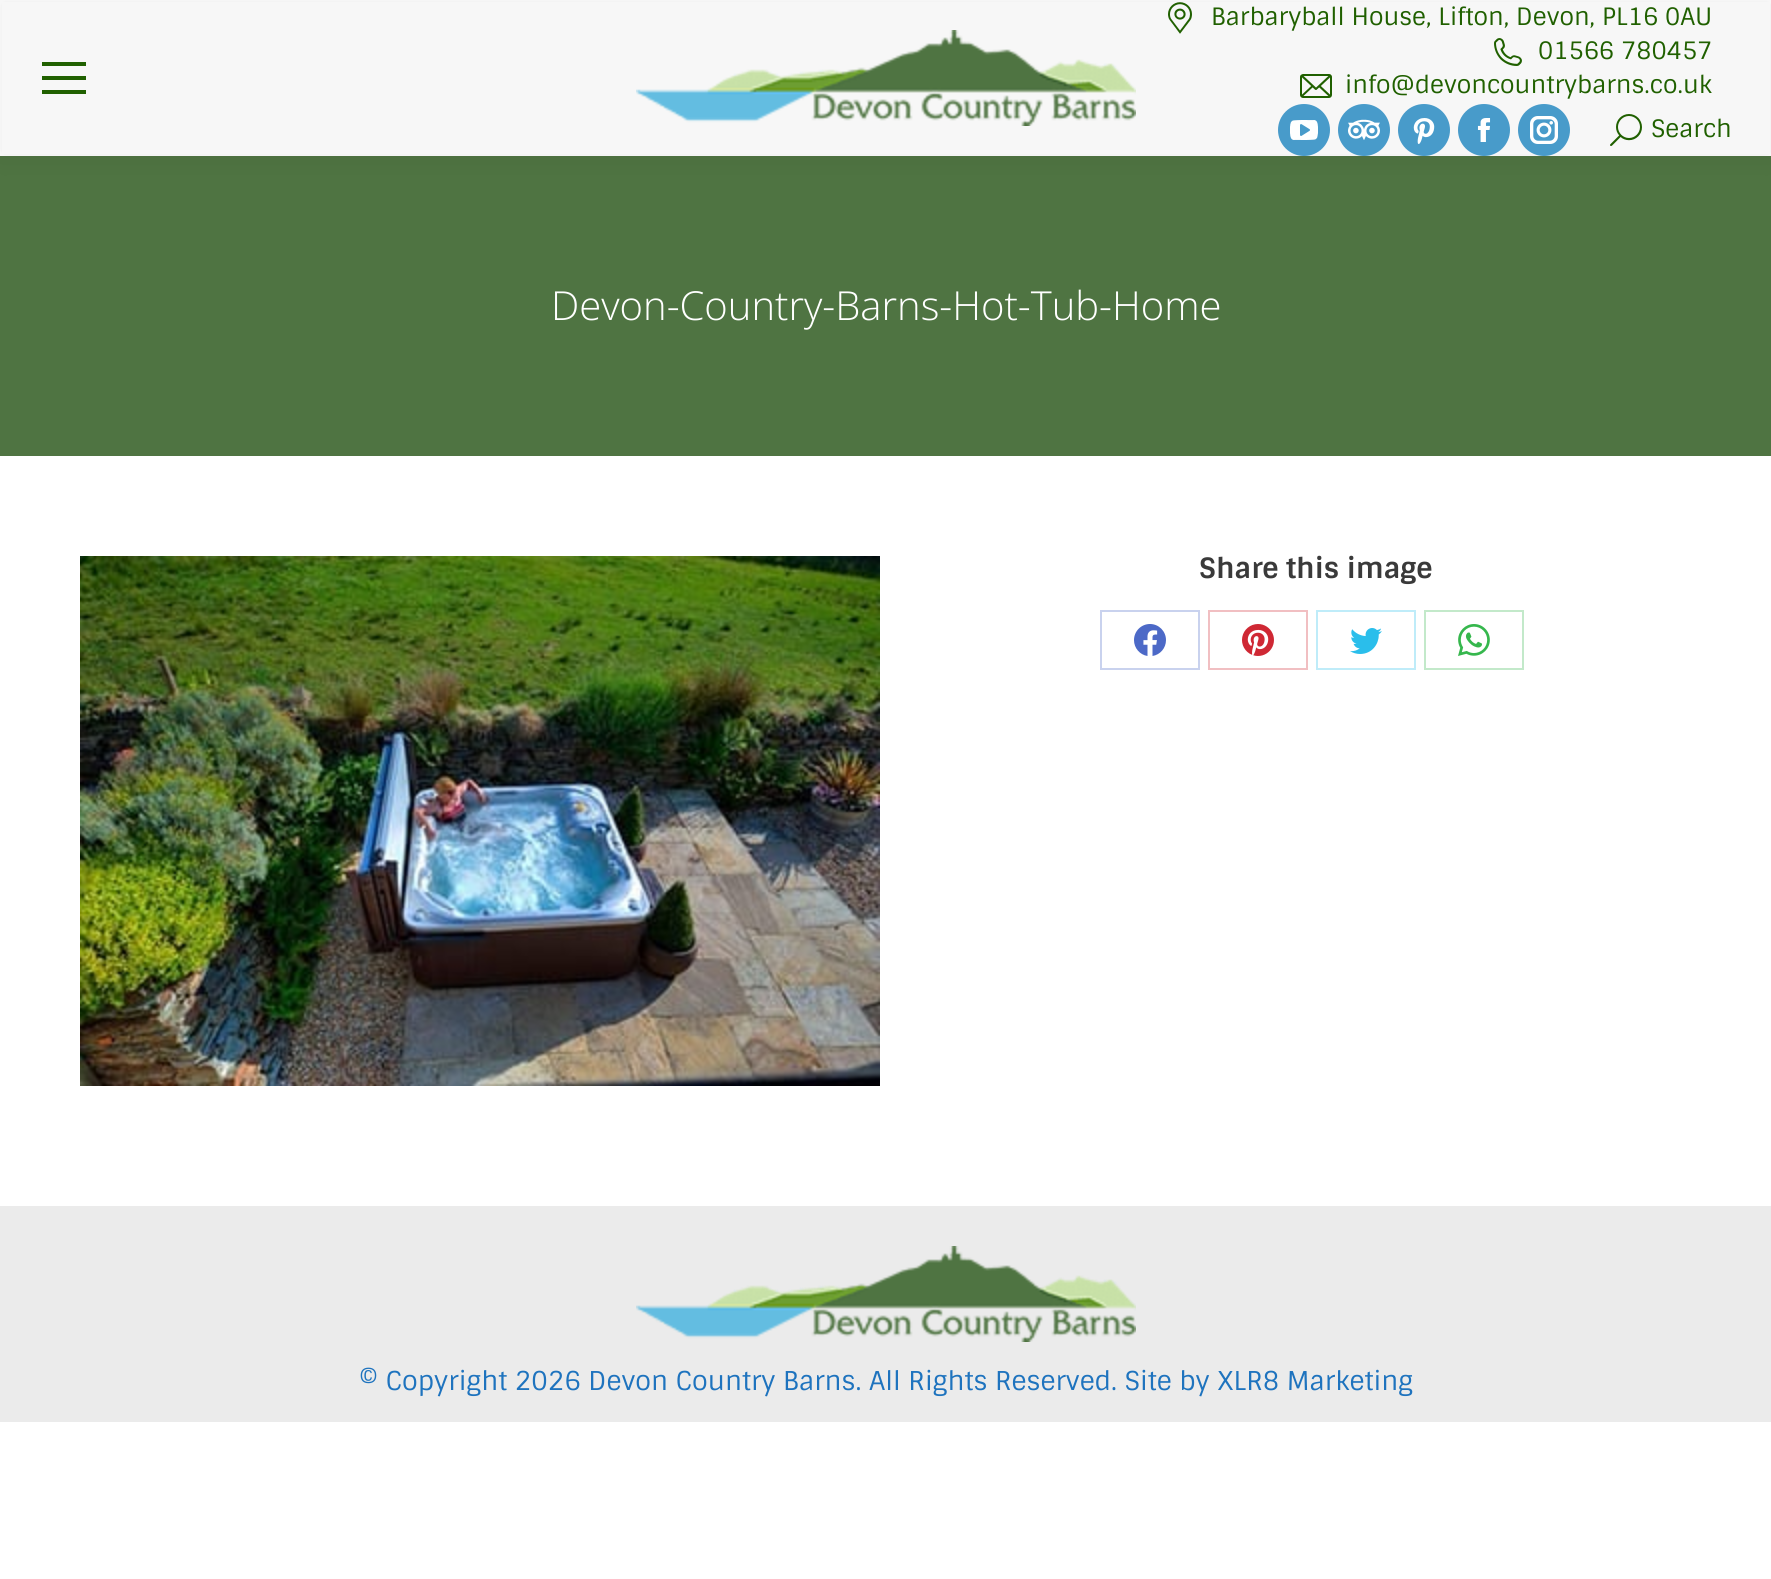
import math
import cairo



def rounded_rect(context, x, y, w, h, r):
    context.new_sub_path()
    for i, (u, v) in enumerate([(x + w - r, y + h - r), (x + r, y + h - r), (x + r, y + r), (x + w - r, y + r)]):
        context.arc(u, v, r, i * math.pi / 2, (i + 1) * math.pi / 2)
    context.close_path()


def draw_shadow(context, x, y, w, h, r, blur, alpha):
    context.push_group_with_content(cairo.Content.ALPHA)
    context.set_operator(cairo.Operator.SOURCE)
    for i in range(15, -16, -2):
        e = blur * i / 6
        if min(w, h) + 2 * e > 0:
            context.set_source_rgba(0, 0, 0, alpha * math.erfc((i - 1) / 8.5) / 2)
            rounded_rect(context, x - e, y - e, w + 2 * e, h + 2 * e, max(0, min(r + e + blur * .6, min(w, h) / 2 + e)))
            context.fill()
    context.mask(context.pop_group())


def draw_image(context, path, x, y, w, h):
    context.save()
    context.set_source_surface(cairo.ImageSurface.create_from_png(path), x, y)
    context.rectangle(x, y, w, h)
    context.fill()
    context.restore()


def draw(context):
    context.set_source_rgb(1, 1, 1)
    context.paint()
    context.set_source_rgb(79 / 255, 116 / 255, 66 / 255)
    context.rectangle(0, 156, 1771, 300)
    context.fill()
    context.set_source_rgb(0, 0, 0)
    draw_shadow(context, -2, -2, 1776, 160, 0, 15, 0.07)
    context.set_source_rgb(247 / 255, 247 / 255, 247 / 255)
    context.rectangle(2, 2, 1768, 152)
    context.fill()
    context.set_source_rgb(32 / 255, 96 / 255, 0)
    context.rectangle(42, 62, 44, 4)
    context.fill()
    context.rectangle(42, 76, 44, 4)
    context.fill()
    context.rectangle(42, 90, 44, 4)
    context.fill()
    draw_image(context, "images/1.png", 636, 30, 500, 96)
    draw_image(context, "images/2.png", 1168, 2, 24, 32)
    draw_image(context, "images/3.png", 1494, 38, 28, 28)
    draw_image(context, "images/4.png", 1300, 74, 32, 24)
    context.set_source_rgb(72 / 255, 155 / 255, 202 / 255)
    context.arc(1304, 130, 26, 0, 2 * math.pi)
    context.fill()
    draw_image(context, "images/5.png", 1290, 120, 28, 20)
    context.arc(1364, 130, 26, 0, 2 * math.pi)
    context.fill()
    draw_image(context, "images/6.png", 1348, 119, 32, 21)
    context.arc(1424, 130, 26, 0, 2 * math.pi)
    context.fill()
    draw_image(context, "images/7.png", 1413, 118, 22, 26)
    context.arc(1484, 130, 26, 0, 2 * math.pi)
    context.fill()
    draw_image(context, "images/8.png", 1477, 118, 14, 24)
    context.arc(1544, 130, 26, 0, 2 * math.pi)
    context.fill()
    draw_image(context, "images/9.png", 1530, 116, 28, 28)
    draw_image(context, "images/10.png", 1610, 114, 32, 32)
    draw_image(context, "images/11.png", 80, 556, 800, 530)
    context.rectangle(1101, 611, 98, 58)
    context.set_source_rgb(201 / 255, 210 / 255, 238 / 255)
    context.stroke()
    draw_image(context, "images/12.png", 1134, 624, 32, 32)
    context.rectangle(1209, 611, 98, 58)
    context.set_source_rgb(241 / 255, 191 / 255, 194 / 255)
    context.stroke()
    draw_image(context, "images/13.png", 1242, 624, 32, 32)
    context.rectangle(1317, 611, 98, 58)
    context.set_source_rgb(191 / 255, 236 / 255, 249 / 255)
    context.stroke()
    draw_image(context, "images/14.png", 1350, 628, 32, 26)
    context.rectangle(1425, 611, 98, 58)
    context.set_source_rgb(195 / 255, 233 / 255, 202 / 255)
    context.stroke()
    draw_image(context, "images/15.png", 1458, 624, 32, 32)
    context.set_source_rgb(235 / 255, 235 / 255, 235 / 255)
    context.rectangle(0, 1206, 1771, 216)
    context.fill()
    draw_image(context, "images/16.png", 636, 1246, 500, 96)
    context.select_font_face("Sintony")
    context.set_font_size(24)
    context.set_source_rgb(32 / 255, 96 / 255, 0)
    context.move_to(1211, 25)
    context.show_text("Barbaryball House, Lifton, Devon, PL16 0AU")
    context.move_to(1538, 59)
    context.show_text("01566 780457")
    context.move_to(1345, 93)
    context.show_text("info@devoncountrybarns.co.uk")
    context.move_to(1651, 137)
    context.show_text("Search")
    context.select_font_face("Open Sans Light")
    context.set_font_size(40)
    context.set_source_rgb(1, 1, 1)
    context.move_to(551, 320)
    context.show_text("Devon-Country-Barns-Hot-Tub-Home")
    context.select_font_face("Sintony", cairo.FontSlant.NORMAL, cairo.FontWeight.BOLD)
    context.set_font_size(28)
    context.set_source_rgb(58 / 255, 58 / 255, 58 / 255)
    context.move_to(1199, 578)
    context.show_text("Share this image")
    context.select_font_face("Sintony")
    context.set_font_size(26)
    context.set_source_rgb(30 / 255, 115 / 255, 190 / 255)
    context.move_to(359, 1390)
    context.show_text("© Copyright 2026 Devon Country Barns. All Rights Reserved. Site by XLR8 Marketing")


surface = cairo.ImageSurface(cairo.Format.RGB24, 1771, 1579)
context = cairo.Context(surface)
options = cairo.FontOptions()
options.set_hint_metrics(cairo.HintMetrics.OFF)
options.set_hint_style(cairo.HintStyle.NONE)
context.set_font_options(options)
context.set_miter_limit(4)
draw(context)
surface.write_to_png("out.png")
